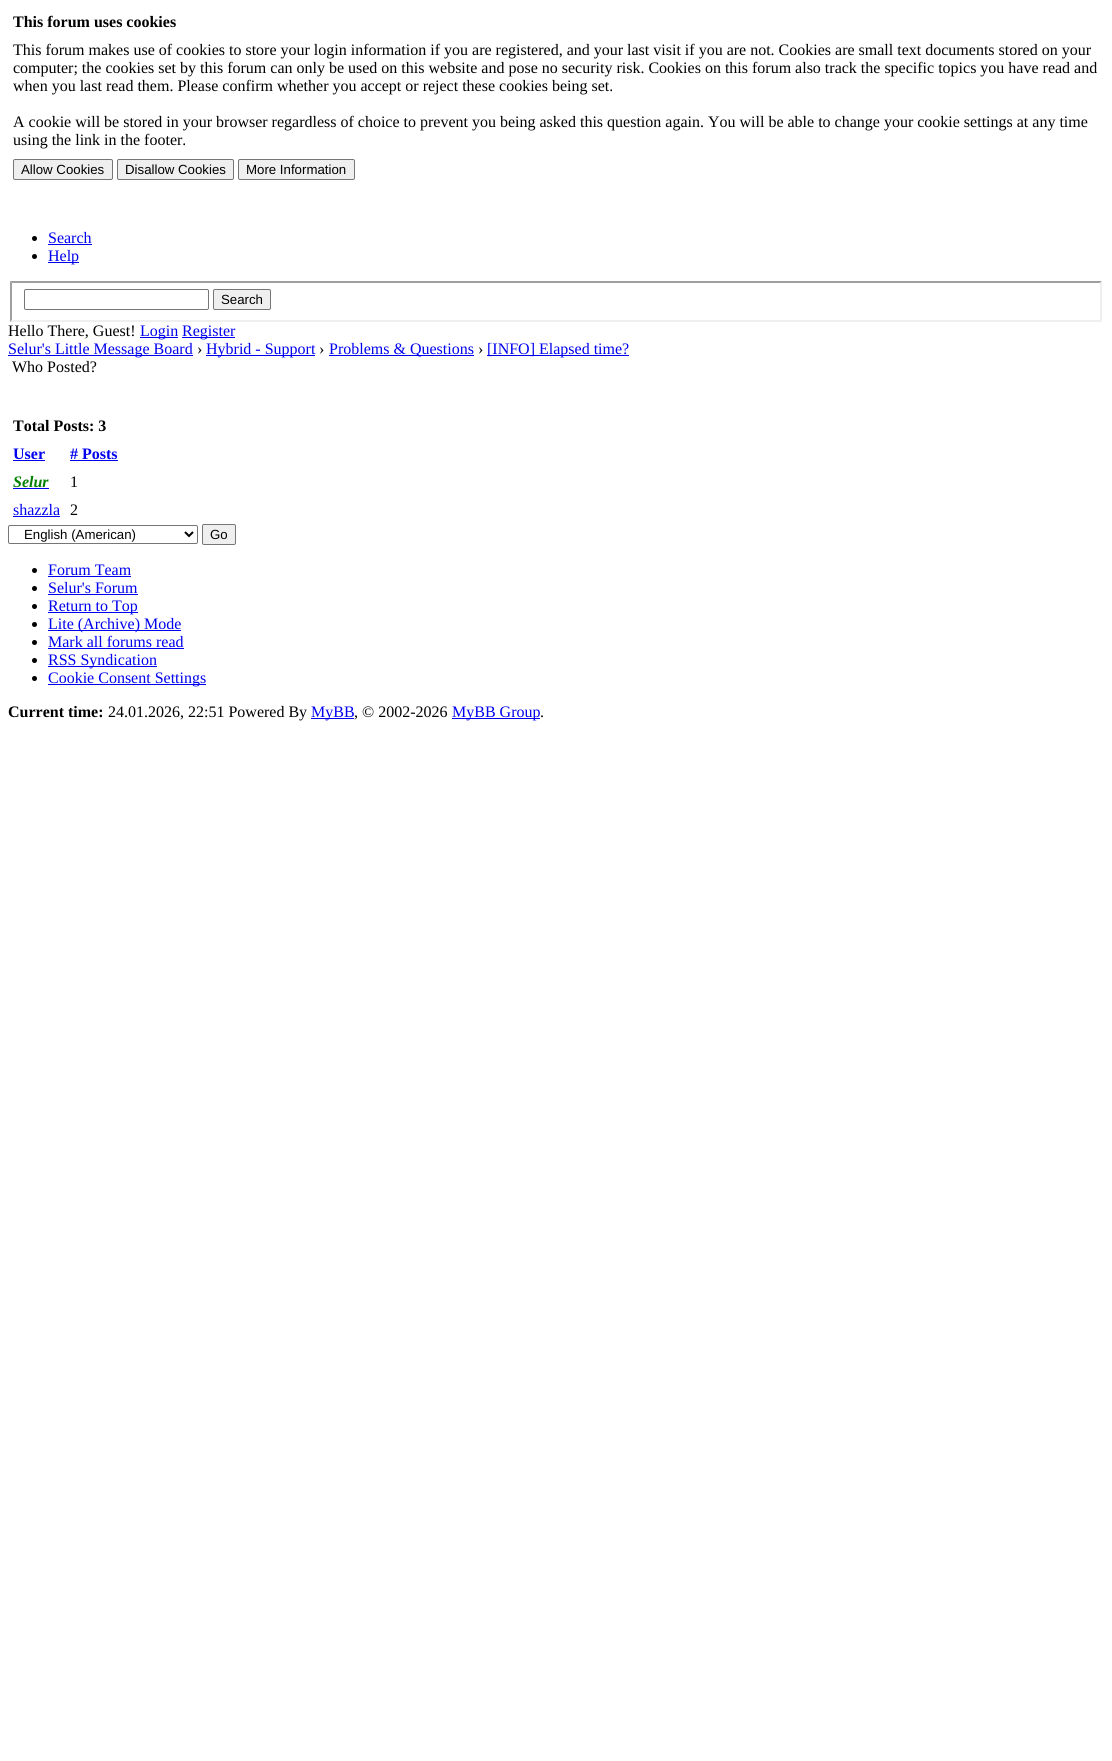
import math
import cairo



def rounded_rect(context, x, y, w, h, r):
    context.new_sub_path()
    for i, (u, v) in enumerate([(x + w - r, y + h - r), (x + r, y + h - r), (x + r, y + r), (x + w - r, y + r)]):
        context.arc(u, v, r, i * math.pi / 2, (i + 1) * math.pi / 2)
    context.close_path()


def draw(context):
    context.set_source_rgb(1, 1, 1)
    context.paint()
    context.set_source_rgb(239 / 255, 239 / 255, 239 / 255)
    rounded_rect(context, 13.5, 159.5, 99, 20, 1.5)
    context.fill_preserve()
    context.set_source_rgb(118 / 255, 118 / 255, 118 / 255)
    context.set_line_width(1)
    context.stroke()
    context.set_source_rgb(239 / 255, 239 / 255, 239 / 255)
    rounded_rect(context, 117.5, 159.5, 116, 20, 1.5)
    context.fill_preserve()
    context.set_source_rgb(118 / 255, 118 / 255, 118 / 255)
    context.stroke()
    context.set_source_rgb(239 / 255, 239 / 255, 239 / 255)
    rounded_rect(context, 238.5, 159.5, 116, 20, 1.5)
    context.fill_preserve()
    context.set_source_rgb(118 / 255, 118 / 255, 118 / 255)
    context.stroke()
    context.set_source_rgb(0, 0, 0)
    context.arc(34.5, 238.5, 2.5, 0, 2 * math.pi)
    context.fill()
    context.set_source_rgb(0, 0, 238 / 255)
    context.rectangle(48, 244, 44, 1)
    context.fill()
    context.set_source_rgb(0, 0, 0)
    context.arc(34.5, 256.5, 2.5, 0, 2 * math.pi)
    context.fill()
    context.set_source_rgb(0, 0, 238 / 255)
    context.rectangle(48, 262, 31, 1)
    context.fill()
    context.set_source_rgb(159 / 255, 159 / 255, 159 / 255)
    context.new_path()
    context.move_to(10, 281)
    context.line_to(1102, 281)
    context.line_to(1100, 283)
    context.line_to(12, 283)
    context.close_path()
    context.fill()
    context.set_source_rgb(239 / 255, 239 / 255, 239 / 255)
    context.new_path()
    context.move_to(1102, 281)
    context.line_to(1102, 322)
    context.line_to(1100, 320)
    context.line_to(1100, 283)
    context.close_path()
    context.fill()
    context.new_path()
    context.move_to(1102, 322)
    context.line_to(10, 322)
    context.line_to(12, 320)
    context.line_to(1100, 320)
    context.close_path()
    context.fill()
    context.set_source_rgb(159 / 255, 159 / 255, 159 / 255)
    context.new_path()
    context.move_to(10, 322)
    context.line_to(10, 281)
    context.line_to(12, 283)
    context.line_to(12, 320)
    context.close_path()
    context.fill()
    rounded_rect(context, 24.5, 289.5, 184, 20, 1.5)
    context.set_source_rgb(118 / 255, 118 / 255, 118 / 255)
    context.stroke()
    context.set_source_rgb(239 / 255, 239 / 255, 239 / 255)
    rounded_rect(context, 213.5, 289.5, 57, 20, 1.5)
    context.fill_preserve()
    context.set_source_rgb(118 / 255, 118 / 255, 118 / 255)
    context.stroke()
    context.set_source_rgb(0, 0, 238 / 255)
    context.rectangle(140, 337, 38, 1)
    context.fill()
    context.rectangle(182, 337, 53, 1)
    context.fill()
    context.rectangle(8, 355, 185, 1)
    context.fill()
    context.rectangle(206, 355, 109, 1)
    context.fill()
    context.rectangle(329, 355, 145, 1)
    context.fill()
    context.rectangle(487, 355, 142, 1)
    context.fill()
    context.rectangle(13, 460, 32, 1)
    context.fill()
    context.rectangle(70, 460, 48, 1)
    context.fill()
    context.rectangle(13, 488, 36, 1)
    context.fill()
    context.rectangle(13, 516, 47, 1)
    context.fill()
    rounded_rect(context, 8.5, 525.5, 189, 18, 1.5)
    context.set_source_rgb(118 / 255, 118 / 255, 118 / 255)
    context.stroke()
    context.new_path()
    context.move_to(185, 532)
    context.line_to(189, 536)
    context.line_to(193, 532)
    context.set_source_rgb(0, 0, 0)
    context.set_line_width(2)
    context.stroke()
    context.set_source_rgb(239 / 255, 239 / 255, 239 / 255)
    rounded_rect(context, 202.5, 524.5, 33, 20, 1.5)
    context.fill_preserve()
    context.set_source_rgb(118 / 255, 118 / 255, 118 / 255)
    context.set_line_width(1)
    context.stroke()
    context.set_source_rgb(0, 0, 0)
    context.arc(34.5, 570.5, 2.5, 0, 2 * math.pi)
    context.fill()
    context.set_source_rgb(0, 0, 238 / 255)
    context.rectangle(48, 576, 83, 1)
    context.fill()
    context.set_source_rgb(0, 0, 0)
    context.arc(34.5, 588.5, 2.5, 0, 2 * math.pi)
    context.fill()
    context.set_source_rgb(0, 0, 238 / 255)
    context.rectangle(48, 594, 90, 1)
    context.fill()
    context.set_source_rgb(0, 0, 0)
    context.arc(34.5, 606.5, 2.5, 0, 2 * math.pi)
    context.fill()
    context.set_source_rgb(0, 0, 238 / 255)
    context.rectangle(48, 612, 90, 1)
    context.fill()
    context.set_source_rgb(0, 0, 0)
    context.arc(34.5, 624.5, 2.5, 0, 2 * math.pi)
    context.fill()
    context.set_source_rgb(0, 0, 238 / 255)
    context.rectangle(48, 630, 133, 1)
    context.fill()
    context.set_source_rgb(0, 0, 0)
    context.arc(34.5, 642.5, 2.5, 0, 2 * math.pi)
    context.fill()
    context.set_source_rgb(0, 0, 238 / 255)
    context.rectangle(48, 648, 136, 1)
    context.fill()
    context.set_source_rgb(0, 0, 0)
    context.arc(34.5, 660.5, 2.5, 0, 2 * math.pi)
    context.fill()
    context.set_source_rgb(0, 0, 238 / 255)
    context.rectangle(48, 666, 109, 1)
    context.fill()
    context.set_source_rgb(0, 0, 0)
    context.arc(34.5, 678.5, 2.5, 0, 2 * math.pi)
    context.fill()
    context.set_source_rgb(0, 0, 238 / 255)
    context.rectangle(48, 684, 158, 1)
    context.fill()
    context.rectangle(311, 718, 43, 1)
    context.fill()
    context.rectangle(452, 718, 88, 1)
    context.fill()
    context.select_font_face("Liberation Serif", cairo.FontSlant.NORMAL, cairo.FontWeight.BOLD)
    context.set_font_size(16)
    context.set_source_rgb(0, 0, 0)
    context.move_to(13, 27)
    context.show_text("This forum uses cookies")
    context.select_font_face("Liberation Serif")
    context.move_to(13, 55)
    context.show_text("This forum makes use of cookies to store your login information if you are registered, and your last visit if you are not. Cookies are small text documents stored on your")
    context.move_to(13, 73)
    context.show_text("computer; the cookies set by this forum can only be used on this website and pose no security risk. Cookies on this forum also track the specific topics you have read and")
    context.move_to(13, 91)
    context.show_text("when you last read them. Please confirm whether you accept or reject these cookies being set.")
    context.move_to(13, 127)
    context.show_text("A cookie will be stored in your browser regardless of choice to prevent you being asked this question again. You will be able to change your cookie settings at any time")
    context.move_to(13, 145)
    context.show_text("using the link in the footer.")
    context.select_font_face("Liberation Sans")
    context.set_font_size(13.25)
    context.move_to(21, 174)
    context.show_text("Allow Cookies")
    context.move_to(125, 174)
    context.show_text("Disallow Cookies")
    context.move_to(246, 174)
    context.show_text("More Information")
    context.select_font_face("Liberation Serif")
    context.set_font_size(16)
    context.set_source_rgb(0, 0, 238 / 255)
    context.move_to(48, 243)
    context.show_text("Search")
    context.move_to(48, 261)
    context.show_text("Help")
    context.select_font_face("Liberation Sans")
    context.set_font_size(13.25)
    context.set_source_rgb(0, 0, 0)
    context.move_to(221, 304)
    context.show_text("Search")
    context.select_font_face("Liberation Serif")
    context.set_font_size(16)
    context.move_to(8, 336)
    context.show_text("Hello There, Guest!")
    context.set_source_rgb(0, 0, 238 / 255)
    context.move_to(140, 336)
    context.show_text("Login")
    context.move_to(182, 336)
    context.show_text("Register")
    context.move_to(8, 354)
    context.show_text("Selur's Little Message Board")
    context.set_source_rgb(0, 0, 0)
    context.move_to(197, 354)
    context.show_text("›")
    context.set_source_rgb(0, 0, 238 / 255)
    context.move_to(206, 354)
    context.show_text("Hybrid - Support")
    context.set_source_rgb(0, 0, 0)
    context.move_to(319, 354)
    context.show_text("›")
    context.set_source_rgb(0, 0, 238 / 255)
    context.move_to(329, 354)
    context.show_text("Problems & Questions")
    context.set_source_rgb(0, 0, 0)
    context.move_to(478, 354)
    context.show_text("›")
    context.set_source_rgb(0, 0, 238 / 255)
    context.move_to(487, 354)
    context.show_text("[INFO] Elapsed time?")
    context.set_source_rgb(0, 0, 0)
    context.move_to(12, 372)
    context.show_text("Who Posted?")
    context.select_font_face("Liberation Serif", cairo.FontSlant.NORMAL, cairo.FontWeight.BOLD)
    context.move_to(13, 431)
    context.show_text("Total Posts: 3")
    context.set_source_rgb(0, 0, 238 / 255)
    context.move_to(13, 459)
    context.show_text("User")
    context.move_to(70, 459)
    context.show_text("# Posts")
    context.select_font_face("Liberation Serif", cairo.FontSlant.ITALIC, cairo.FontWeight.BOLD)
    context.set_source_rgb(0, 128 / 255, 0)
    context.move_to(13, 487)
    context.show_text("Selur")
    context.select_font_face("Liberation Serif")
    context.set_source_rgb(0, 0, 0)
    context.move_to(70, 487)
    context.show_text("1")
    context.set_source_rgb(0, 0, 238 / 255)
    context.move_to(13, 515)
    context.show_text("shazzla")
    context.set_source_rgb(0, 0, 0)
    context.move_to(70, 515)
    context.show_text("2")
    context.select_font_face("Liberation Sans")
    context.set_font_size(13.25)
    context.move_to(24, 539)
    context.show_text("English (American)")
    context.move_to(210, 539)
    context.show_text("Go")
    context.select_font_face("Liberation Serif")
    context.set_font_size(16)
    context.set_source_rgb(0, 0, 238 / 255)
    context.move_to(48, 575)
    context.show_text("Forum Team")
    context.move_to(48, 593)
    context.show_text("Selur's Forum")
    context.move_to(48, 611)
    context.show_text("Return to Top")
    context.move_to(48, 629)
    context.show_text("Lite (Archive) Mode")
    context.move_to(48, 647)
    context.show_text("Mark all forums read")
    context.move_to(48, 665)
    context.show_text("RSS Syndication")
    context.move_to(48, 683)
    context.show_text("Cookie Consent Settings")
    context.select_font_face("Liberation Serif", cairo.FontSlant.NORMAL, cairo.FontWeight.BOLD)
    context.set_source_rgb(0, 0, 0)
    context.move_to(8, 717)
    context.show_text("Current time:")
    context.select_font_face("Liberation Serif")
    context.move_to(108, 717)
    context.show_text("24.01.2026, 22:51 Powered By")
    context.set_source_rgb(0, 0, 238 / 255)
    context.move_to(311, 717)
    context.show_text("MyBB")
    context.set_source_rgb(0, 0, 0)
    context.move_to(354, 717)
    context.show_text(", © 2002-2026")
    context.set_source_rgb(0, 0, 238 / 255)
    context.move_to(452, 717)
    context.show_text("MyBB Group")
    context.set_source_rgb(0, 0, 0)
    context.move_to(540, 717)
    context.show_text(".")


surface = cairo.ImageSurface(cairo.Format.RGB24, 1112, 1761)
context = cairo.Context(surface)
options = cairo.FontOptions()
options.set_hint_metrics(cairo.HintMetrics.OFF)
options.set_hint_style(cairo.HintStyle.NONE)
context.set_font_options(options)
context.set_miter_limit(4)
draw(context)
surface.write_to_png("out.png")
